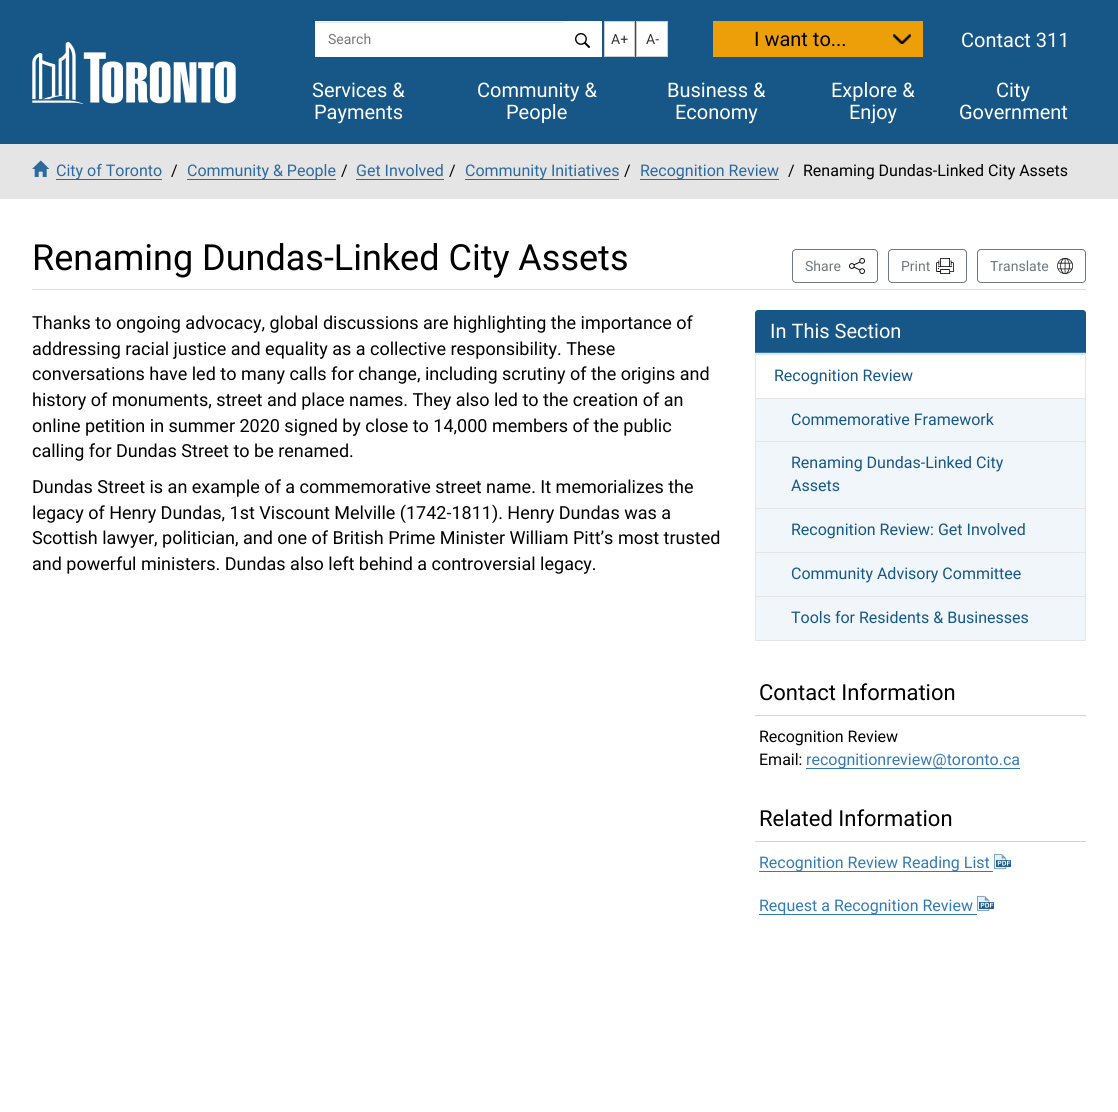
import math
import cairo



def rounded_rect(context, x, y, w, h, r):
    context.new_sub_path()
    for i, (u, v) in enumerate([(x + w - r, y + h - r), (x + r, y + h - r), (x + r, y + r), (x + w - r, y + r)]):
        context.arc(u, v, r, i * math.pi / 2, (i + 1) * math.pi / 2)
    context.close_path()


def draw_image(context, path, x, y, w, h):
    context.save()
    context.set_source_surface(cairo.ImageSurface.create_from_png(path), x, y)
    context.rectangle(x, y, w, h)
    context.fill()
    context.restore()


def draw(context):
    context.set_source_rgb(1, 1, 1)
    context.paint()
    context.set_source_rgb(22 / 255, 87 / 255, 136 / 255)
    context.rectangle(0, 0, 1118, 144)
    context.fill()
    draw_image(context, "images/1.png", 32, 42, 204, 62)
    context.set_source_rgb(1, 1, 1)
    context.rectangle(315, 21, 287, 36)
    context.fill()
    draw_image(context, "images/2.png", 575, 33, 15, 15)
    context.set_source_rgb(236 / 255, 236 / 255, 236 / 255)
    context.rectangle(316, 22, 248, 1)
    context.fill()
    context.set_source_rgb(1, 1, 1)
    context.rectangle(604.5, 21.5, 30, 35)
    context.fill_preserve()
    context.set_source_rgb(204 / 255, 204 / 255, 204 / 255)
    context.set_line_width(1)
    context.stroke()
    context.set_source_rgb(1, 1, 1)
    context.rectangle(636.5, 21.5, 31, 35)
    context.fill_preserve()
    context.set_source_rgb(204 / 255, 204 / 255, 204 / 255)
    context.stroke()
    context.set_source_rgb(236 / 255, 159 / 255, 9 / 255)
    context.rectangle(713, 21, 210, 36)
    context.fill()
    draw_image(context, "images/3.png", 893, 34, 18, 10)
    context.set_source_rgb(229 / 255, 229 / 255, 229 / 255)
    context.rectangle(0, 144, 1118, 55)
    context.fill()
    draw_image(context, "images/4.png", 32, 160, 18, 17)
    context.set_source_rgb(45 / 255, 105 / 255, 158 / 255)
    context.rectangle(56, 179, 106, 1)
    context.fill()
    context.rectangle(187, 179, 149, 1)
    context.fill()
    context.rectangle(356, 179, 88, 1)
    context.fill()
    context.rectangle(465, 179, 154, 1)
    context.fill()
    context.rectangle(640, 179, 139, 1)
    context.fill()
    context.set_source_rgb(221 / 255, 221 / 255, 221 / 255)
    context.rectangle(32, 289, 1054, 1)
    context.fill()
    draw_image(context, "images/5.png", 849, 258, 16, 16)
    rounded_rect(context, 792.5, 249.5, 85, 33, 3.5)
    context.set_source_rgb(110 / 255, 120 / 255, 124 / 255)
    context.stroke()
    draw_image(context, "images/6.png", 936, 258, 18, 16)
    rounded_rect(context, 888.5, 249.5, 78, 33, 3.5)
    context.stroke()
    draw_image(context, "images/7.png", 1057, 258, 16, 16)
    rounded_rect(context, 977.5, 249.5, 108, 33, 3.5)
    context.stroke()
    context.set_source_rgb(22 / 255, 87 / 255, 136 / 255)
    context.new_path()
    context.move_to(758, 310)
    context.line_to(1083, 310)
    context.curve_to(1084.5, 310, 1086, 311.5, 1086, 313)
    context.line_to(1086, 353)
    context.line_to(755, 353)
    context.line_to(755, 313)
    context.curve_to(755, 311.5, 756.5, 310, 758, 310)
    context.close_path()
    context.fill()
    context.set_source_rgb(51 / 255, 122 / 255, 183 / 255)
    context.rectangle(755, 352, 331, 1)
    context.fill()
    context.rectangle(755.5, 353.5, 330, 287)
    context.set_source_rgb(229 / 255, 229 / 255, 229 / 255)
    context.stroke()
    context.rectangle(756, 354, 329, 1)
    context.fill()
    context.set_source_rgb(241 / 255, 246 / 255, 250 / 255)
    context.rectangle(756, 399, 329, 241)
    context.fill()
    context.set_source_rgb(229 / 255, 229 / 255, 229 / 255)
    context.rectangle(756, 398, 329, 1)
    context.fill()
    context.rectangle(756, 441, 329, 1)
    context.fill()
    context.rectangle(756, 508, 329, 1)
    context.fill()
    context.rectangle(756, 552, 329, 1)
    context.fill()
    context.rectangle(756, 596, 329, 1)
    context.fill()
    context.set_source_rgb(211 / 255, 211 / 255, 211 / 255)
    context.rectangle(755, 715, 331, 1)
    context.fill()
    context.set_source_rgb(51 / 255, 122 / 255, 183 / 255)
    context.rectangle(806, 768, 214, 1)
    context.fill()
    context.set_source_rgb(211 / 255, 211 / 255, 211 / 255)
    context.rectangle(755, 841, 331, 1)
    context.fill()
    context.set_source_rgb(51 / 255, 122 / 255, 183 / 255)
    context.rectangle(759, 871, 234, 1)
    context.fill()
    draw_image(context, "images/8.png", 994, 853, 17, 17)
    context.rectangle(759, 914, 218, 1)
    context.fill()
    draw_image(context, "images/8.png", 977, 895, 17, 17)
    context.select_font_face("Roboto")
    context.set_font_size(14)
    context.set_source_rgb(118 / 255, 118 / 255, 118 / 255)
    context.move_to(328, 44)
    context.show_text("Search")
    context.set_source_rgb(51 / 255, 51 / 255, 51 / 255)
    context.move_to(611, 44)
    context.show_text("A+")
    context.move_to(646, 44)
    context.show_text("A-")
    context.set_font_size(20)
    context.set_source_rgb(0, 0, 0)
    context.move_to(754, 46)
    context.show_text("I want to...")
    context.set_source_rgb(1, 1, 1)
    context.move_to(961, 47)
    context.show_text("Contact 311")
    context.move_to(312, 97)
    context.show_text("Services &")
    context.move_to(314, 119)
    context.show_text("Payments")
    context.move_to(477, 97)
    context.show_text("Community &")
    context.move_to(506, 119)
    context.show_text("People")
    context.move_to(667, 97)
    context.show_text("Business &")
    context.move_to(675, 119)
    context.show_text("Economy")
    context.move_to(831, 97)
    context.show_text("Explore &")
    context.move_to(849, 119)
    context.show_text("Enjoy")
    context.move_to(996, 97)
    context.show_text("City")
    context.move_to(959, 119)
    context.show_text("Government")
    context.set_font_size(16)
    context.set_source_rgb(45 / 255, 105 / 255, 158 / 255)
    context.move_to(56, 176)
    context.show_text("City of Toronto")
    context.set_source_rgb(0, 0, 0)
    context.move_to(171, 176)
    context.show_text("/")
    context.set_source_rgb(45 / 255, 105 / 255, 158 / 255)
    context.move_to(187, 176)
    context.show_text("Community & People")
    context.set_source_rgb(0, 0, 0)
    context.move_to(341, 176)
    context.show_text("/")
    context.set_source_rgb(45 / 255, 105 / 255, 158 / 255)
    context.move_to(356, 176)
    context.show_text("Get Involved")
    context.set_source_rgb(0, 0, 0)
    context.move_to(449, 176)
    context.show_text("/")
    context.set_source_rgb(45 / 255, 105 / 255, 158 / 255)
    context.move_to(465, 176)
    context.show_text("Community Initiatives")
    context.set_source_rgb(0, 0, 0)
    context.move_to(624, 176)
    context.show_text("/")
    context.set_source_rgb(45 / 255, 105 / 255, 158 / 255)
    context.move_to(640, 176)
    context.show_text("Recognition Review")
    context.set_source_rgb(0, 0, 0)
    context.move_to(788, 176)
    context.show_text("/")
    context.move_to(803, 176)
    context.show_text("Renaming Dundas-Linked City Assets")
    context.set_font_size(36)
    context.move_to(32, 270)
    context.show_text("Renaming Dundas-Linked City Assets")
    context.set_font_size(14)
    context.set_source_rgb(110 / 255, 120 / 255, 124 / 255)
    context.move_to(805, 271)
    context.show_text("Share")
    context.move_to(901, 271)
    context.show_text("Print")
    context.move_to(990, 271)
    context.show_text("Translate")
    context.set_font_size(18)
    context.set_source_rgb(0, 0, 0)
    context.move_to(32, 329)
    context.show_text("Thanks to ongoing advocacy, global discussions are highlighting the importance of")
    context.move_to(32, 355)
    context.show_text("addressing racial justice and equality as a collective responsibility. These")
    context.move_to(32, 380)
    context.show_text("conversations have led to many calls for change, including scrutiny of the origins and")
    context.move_to(32, 406)
    context.show_text("history of monuments, street and place names. They also led to the creation of an")
    context.move_to(32, 432)
    context.show_text("online petition in summer 2020 signed by close to 14,000 members of the public")
    context.move_to(32, 457)
    context.show_text("calling for Dundas Street to be renamed.")
    context.move_to(32, 493)
    context.show_text("Dundas Street is an example of a commemorative street name. It memorializes the")
    context.move_to(32, 519)
    context.show_text("legacy of Henry Dundas, 1st Viscount Melville (1742-1811). Henry Dundas was a")
    context.move_to(32, 544)
    context.show_text("Scottish lawyer, politician, and one of British Prime Minister William Pitt’s most trusted")
    context.move_to(32, 570)
    context.show_text("and powerful ministers. Dundas also left behind a controversial legacy.")
    context.set_font_size(20)
    context.set_source_rgb(1, 1, 1)
    context.move_to(770, 338)
    context.show_text("In This Section")
    context.set_font_size(16)
    context.set_source_rgb(22 / 255, 87 / 255, 136 / 255)
    context.move_to(774, 381)
    context.show_text("Recognition Review")
    context.move_to(791, 425)
    context.show_text("Commemorative Framework")
    context.move_to(791, 468)
    context.show_text("Renaming Dundas-Linked City")
    context.move_to(791, 491)
    context.show_text("Assets")
    context.move_to(791, 535)
    context.show_text("Recognition Review: Get Involved")
    context.move_to(791, 579)
    context.show_text("Community Advisory Committee")
    context.move_to(791, 623)
    context.show_text("Tools for Residents & Businesses")
    context.set_font_size(22)
    context.set_source_rgb(0, 0, 0)
    context.move_to(759, 700)
    context.show_text("Contact Information")
    context.set_font_size(16)
    context.move_to(759, 742)
    context.show_text("Recognition Review")
    context.move_to(759, 765)
    context.show_text("Email:")
    context.set_source_rgb(51 / 255, 122 / 255, 183 / 255)
    context.move_to(806, 765)
    context.show_text("recognitionreview@toronto.ca")
    context.set_font_size(22)
    context.set_source_rgb(0, 0, 0)
    context.move_to(759, 826)
    context.show_text("Related Information")
    context.set_font_size(16)
    context.set_source_rgb(51 / 255, 122 / 255, 183 / 255)
    context.move_to(759, 868)
    context.show_text("Recognition Review Reading List")
    context.move_to(759, 911)
    context.show_text("Request a Recognition Review")


surface = cairo.ImageSurface(cairo.Format.RGB24, 1118, 1112)
context = cairo.Context(surface)
options = cairo.FontOptions()
options.set_hint_metrics(cairo.HintMetrics.OFF)
options.set_hint_style(cairo.HintStyle.NONE)
context.set_font_options(options)
context.set_miter_limit(4)
draw(context)
surface.write_to_png("out.png")
